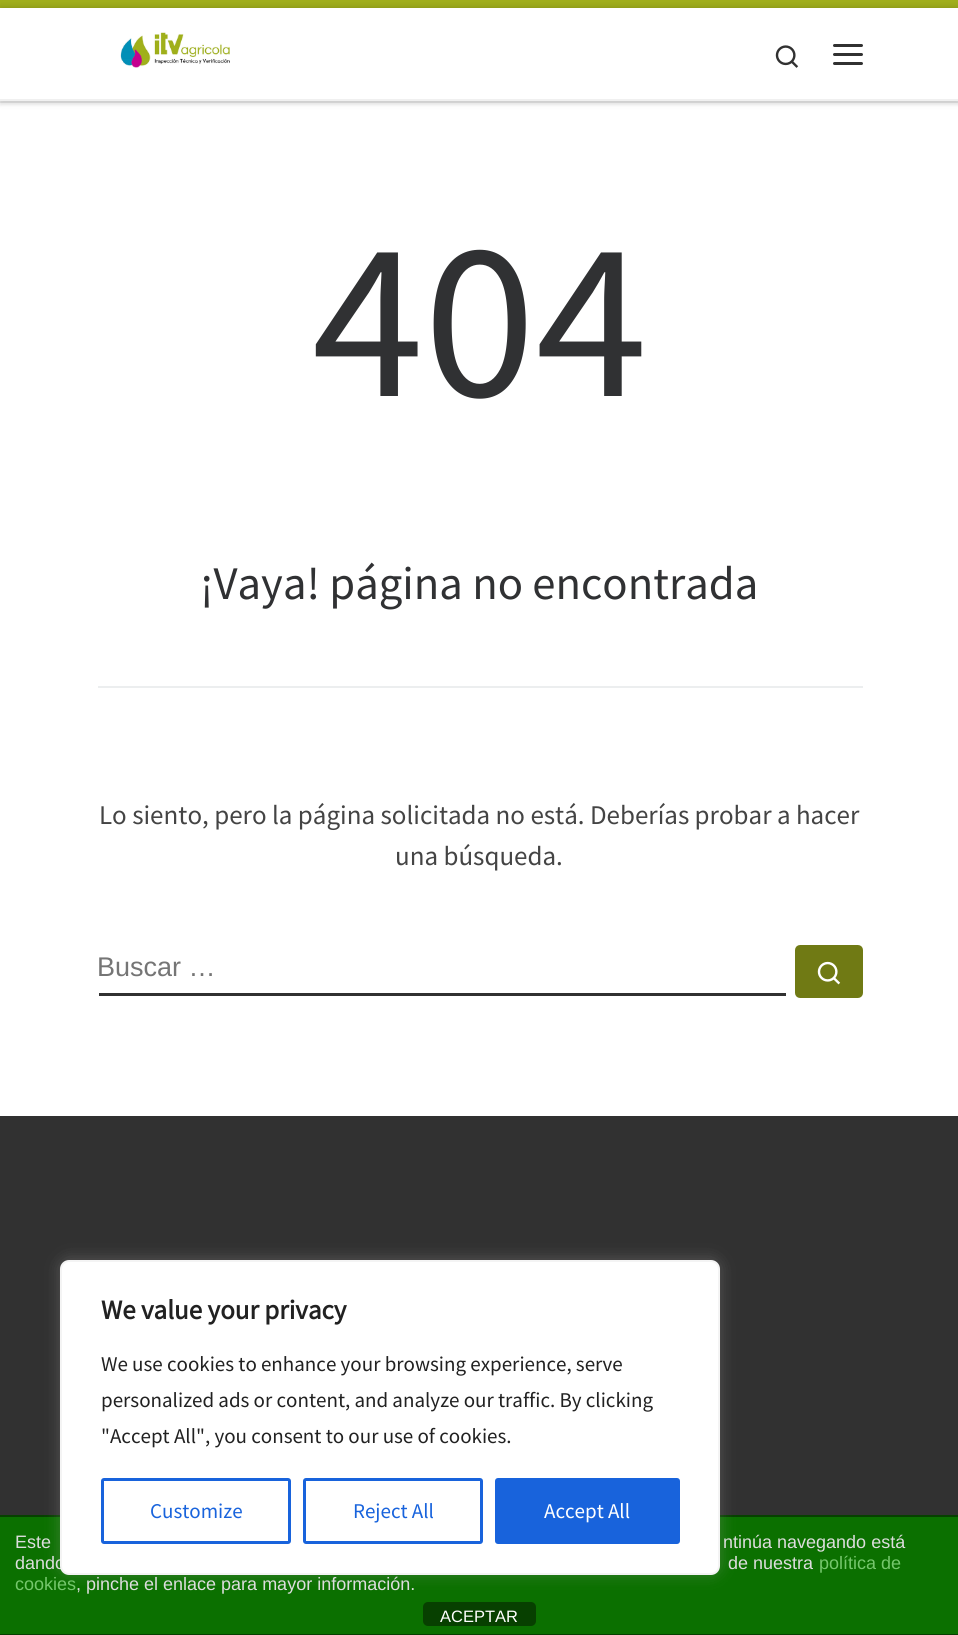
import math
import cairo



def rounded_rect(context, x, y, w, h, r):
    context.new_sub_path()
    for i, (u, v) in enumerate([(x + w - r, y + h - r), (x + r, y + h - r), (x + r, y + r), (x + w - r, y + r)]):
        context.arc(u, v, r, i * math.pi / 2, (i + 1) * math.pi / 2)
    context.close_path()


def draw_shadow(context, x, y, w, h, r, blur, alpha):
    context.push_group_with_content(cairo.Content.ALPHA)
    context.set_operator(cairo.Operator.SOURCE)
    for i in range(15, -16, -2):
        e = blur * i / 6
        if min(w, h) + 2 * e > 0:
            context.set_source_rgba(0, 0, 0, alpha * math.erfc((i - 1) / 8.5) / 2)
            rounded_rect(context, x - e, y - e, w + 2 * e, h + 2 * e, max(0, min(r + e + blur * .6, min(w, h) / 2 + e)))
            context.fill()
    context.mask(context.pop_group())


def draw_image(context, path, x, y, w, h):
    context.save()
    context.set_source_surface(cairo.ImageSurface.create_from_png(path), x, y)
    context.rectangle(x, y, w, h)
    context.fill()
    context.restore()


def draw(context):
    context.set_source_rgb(1, 1, 1)
    context.paint()
    context.set_source_rgb(102 / 255, 102 / 255, 102 / 255)
    draw_shadow(context, 0, 3, 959, 102, 0, 1.5, 0.08)
    context.set_source_rgb(161 / 255, 175 / 255, 28 / 255)
    context.rectangle(0, 0, 958, 8)
    context.fill()
    context.set_source_rgba(49 / 255, 49 / 255, 49 / 255, 0.09)
    context.rectangle(0, 101, 958, 2)
    context.fill()
    context.set_source_rgba(1, 1, 1, 0.15)
    context.new_path()
    context.move_to(0, 100)
    context.line_to(0, 102)
    context.line_to(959, 102)
    context.line_to(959, 9)
    context.line_to(958, 9)
    context.line_to(958, 100)
    context.close_path()
    context.fill()
    context.set_source_rgb(0, 0, 0)
    draw_shadow(context, 0, 8, 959, 93, 0, 4, 0.2)
    context.set_source_rgb(1, 1, 1)
    context.rectangle(0, 8, 958, 91)
    context.fill()
    draw_image(context, "images/1.png", 120, 32, 110, 36)
    draw_image(context, "images/2.png", 775, 45, 24, 23)
    context.set_source_rgb(49 / 255, 49 / 255, 49 / 255)
    rounded_rect(context, 833, 44, 30, 3, 1.5)
    context.fill()
    rounded_rect(context, 833, 53, 30, 3, 1.5)
    context.fill()
    rounded_rect(context, 833, 62, 30, 3, 1.5)
    context.fill()
    context.set_source_rgb(240 / 255, 240 / 255, 240 / 255)
    context.rectangle(0, 99, 958, 2)
    context.fill()
    context.set_source_rgb(236 / 255, 238 / 255, 239 / 255)
    context.rectangle(98, 686, 765, 2)
    context.fill()
    context.set_source_rgb(49 / 255, 49 / 255, 49 / 255)
    context.rectangle(99, 993, 687, 3)
    context.fill()
    context.set_source_rgb(112 / 255, 122 / 255, 20 / 255)
    rounded_rect(context, 796.5, 946.5, 65, 50, 3.5)
    context.fill_preserve()
    context.set_line_width(3)
    context.stroke()
    draw_image(context, "images/3.png", 817, 961, 24, 24)
    context.set_source_rgb(49 / 255, 49 / 255, 49 / 255)
    context.rectangle(0, 1116, 958, 399)
    context.fill()
    context.set_source_rgb(11 / 255, 112 / 255, 0)
    context.rectangle(0, 1517, 958, 117)
    context.fill()
    context.set_source_rgb(6 / 255, 64 / 255, 0)
    context.rectangle(0, 1515, 958, 2)
    context.fill()
    context.set_source_rgb(172 / 255, 171 / 255, 171 / 255)
    draw_shadow(context, 60, 1259, 660, 315, 9, 7.5, 0.3)
    context.set_source_rgb(6 / 255, 64 / 255, 0)
    context.rectangle(0, 1634, 958, 1)
    context.fill()
    context.set_source_rgb(7 / 255, 64 / 255, 0)
    rounded_rect(context, 423, 1602, 113, 24, 5)
    context.fill()
    context.select_font_face("Source Sans Pro")
    context.set_font_size(225)
    context.set_source_rgb(48 / 255, 49 / 255, 51 / 255)
    context.move_to(312, 396)
    context.show_text("404")
    context.set_font_size(46.7)
    context.move_to(200, 599)
    context.show_text("¡Vaya! página no encontrada")
    context.set_font_size(27)
    context.set_source_rgb(68 / 255, 68 / 255, 68 / 255)
    context.move_to(99, 824)
    context.show_text("Lo siento, pero la página solicitada no está. Deberías probar a hacer")
    context.move_to(395, 865)
    context.show_text("una búsqueda.")
    context.select_font_face("Liberation Sans")
    context.set_source_rgb(117 / 255, 117 / 255, 117 / 255)
    context.move_to(97, 976)
    context.show_text("Buscar …")
    context.set_font_size(18)
    context.set_source_rgb(221 / 255, 221 / 255, 221 / 255)
    context.move_to(15, 1548)
    context.show_text("Este")
    context.move_to(723, 1548)
    context.show_text("ntinúa navegando está")
    context.move_to(15, 1569)
    context.show_text("dando")
    context.set_source_rgb(1, 1, 1)
    rounded_rect(context, 61, 1261, 658, 313, 8)
    context.fill_preserve()
    context.set_source_rgb(244 / 255, 244 / 255, 244 / 255)
    context.set_line_width(2)
    context.stroke()
    context.set_source_rgb(24 / 255, 99 / 255, 220 / 255)
    rounded_rect(context, 496.5, 1479.5, 182, 63, 1.5)
    context.fill_preserve()
    context.set_line_width(3)
    context.stroke()
    context.select_font_face("Source Sans Pro")
    context.set_font_size(21)
    context.set_source_rgb(1, 1, 1)
    context.move_to(544, 1518)
    context.show_text("Accept All")
    rounded_rect(context, 304.5, 1479.5, 177, 63, 1.5)
    context.set_source_rgb(24 / 255, 99 / 255, 220 / 255)
    context.stroke()
    context.move_to(353, 1518)
    context.show_text("Reject All")
    rounded_rect(context, 102.5, 1479.5, 187, 63, 1.5)
    context.stroke()
    context.move_to(150, 1518)
    context.show_text("Customize")
    context.set_source_rgb(33 / 255, 33 / 255, 33 / 255)
    context.move_to(101, 1443)
    context.show_text("\"Accept All\", you consent to our use of cookies.")
    context.move_to(101, 1407)
    context.show_text("personalized ads or content, and analyze our traffic. By clicking")
    context.move_to(101, 1371)
    context.show_text("We use cookies to enhance your browsing experience, serve")
    context.select_font_face("Source Sans Pro", cairo.FontSlant.NORMAL, cairo.FontWeight.BOLD)
    context.set_font_size(27)
    context.move_to(101, 1319)
    context.show_text("We value your privacy")
    context.select_font_face("Liberation Sans")
    context.set_font_size(18)
    context.set_source_rgb(221 / 255, 221 / 255, 221 / 255)
    context.move_to(728, 1569)
    context.show_text("de nuestra")
    context.set_source_rgb(117 / 255, 199 / 255, 108 / 255)
    context.move_to(819, 1569)
    context.show_text("política de")
    context.move_to(15, 1590)
    context.show_text("cookies")
    context.set_source_rgb(221 / 255, 221 / 255, 221 / 255)
    context.move_to(76, 1590)
    context.show_text(", pinche el enlace para mayor información.")
    context.set_font_size(16.5)
    context.set_source_rgb(1, 1, 1)
    context.move_to(440, 1622)
    context.show_text("ACEPTAR")


surface = cairo.ImageSurface(cairo.Format.RGB24, 958, 1635)
context = cairo.Context(surface)
options = cairo.FontOptions()
options.set_hint_metrics(cairo.HintMetrics.OFF)
options.set_hint_style(cairo.HintStyle.NONE)
context.set_font_options(options)
context.set_miter_limit(4)
draw(context)
surface.write_to_png("out.png")
